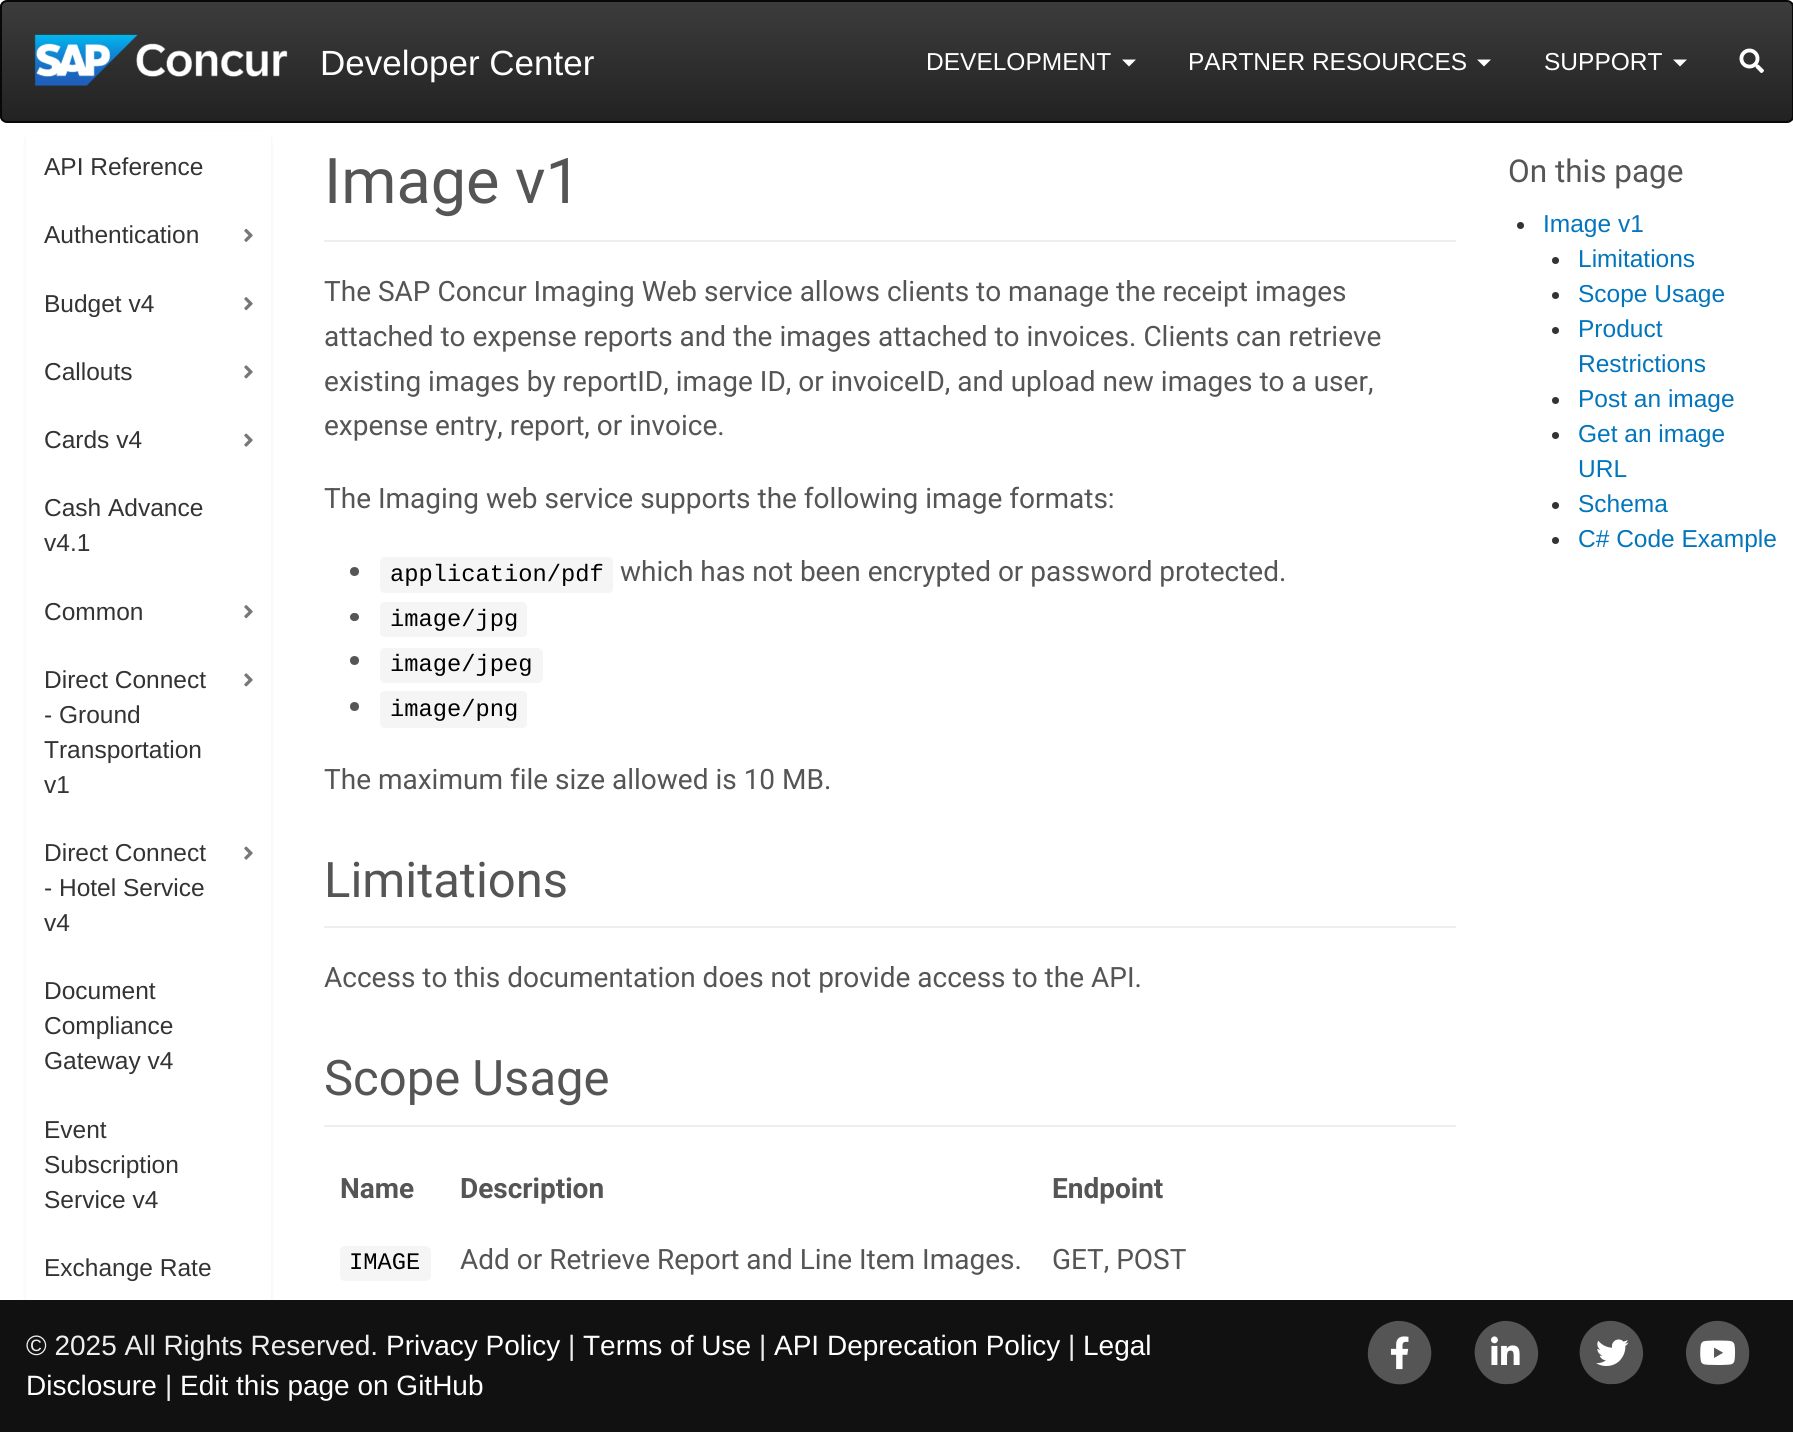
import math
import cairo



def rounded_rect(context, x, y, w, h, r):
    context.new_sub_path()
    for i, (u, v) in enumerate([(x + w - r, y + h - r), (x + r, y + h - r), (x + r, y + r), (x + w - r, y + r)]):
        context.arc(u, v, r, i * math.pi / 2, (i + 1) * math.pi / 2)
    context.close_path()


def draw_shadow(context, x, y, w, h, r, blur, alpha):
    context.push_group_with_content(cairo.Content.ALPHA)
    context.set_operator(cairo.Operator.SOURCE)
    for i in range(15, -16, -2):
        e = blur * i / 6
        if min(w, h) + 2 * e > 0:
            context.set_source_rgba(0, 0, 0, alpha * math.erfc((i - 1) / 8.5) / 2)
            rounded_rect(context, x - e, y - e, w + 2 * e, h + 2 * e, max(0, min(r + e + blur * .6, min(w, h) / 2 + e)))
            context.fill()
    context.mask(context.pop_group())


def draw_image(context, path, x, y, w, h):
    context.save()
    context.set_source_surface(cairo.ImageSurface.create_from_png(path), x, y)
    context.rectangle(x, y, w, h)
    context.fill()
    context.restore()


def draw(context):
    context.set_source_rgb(1, 1, 1)
    context.paint()
    context.save()
    rounded_rect(context, 0, 0, 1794, 123, 7)
    context.clip()
    gradient = cairo.LinearGradient(897, 1.7, 897, 121)
    gradient.add_color_stop_rgba(0, 60 / 255, 60 / 255, 60 / 255, 1)
    gradient.add_color_stop_rgba(1, 34 / 255, 34 / 255, 34 / 255, 1)
    context.set_source(gradient)
    context.rectangle(0, 2, 1793, 119)
    context.fill()
    context.restore()
    rounded_rect(context, 1, 1, 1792, 121, 6)
    context.set_source_rgb(8 / 255, 8 / 255, 8 / 255)
    context.stroke()
    draw_image(context, "images/1.png", 34, 34, 254, 52)
    context.set_source_rgb(1, 1, 1)
    context.new_path()
    context.move_to(1122, 59.5)
    context.line_to(1136, 59.5)
    context.line_to(1129, 66.5)
    context.close_path()
    context.fill()
    context.new_path()
    context.move_to(1477, 59.5)
    context.line_to(1491, 59.5)
    context.line_to(1484, 66.5)
    context.close_path()
    context.fill()
    context.new_path()
    context.move_to(1673, 59.5)
    context.line_to(1687, 59.5)
    context.line_to(1680, 66.5)
    context.close_path()
    context.fill()
    draw_image(context, "images/2.png", 1739, 48, 25, 25)
    context.set_source_rgb(0, 0, 0)
    draw_shadow(context, 26, 133, 245, 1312, 7, 2, 0.07)
    context.set_source_rgb(1, 1, 1)
    context.new_path()
    context.move_to(33, 131)
    context.line_to(264, 131)
    context.curve_to(268, 131, 271, 134, 271, 138)
    context.line_to(271, 201)
    context.line_to(26, 201)
    context.line_to(26, 138)
    context.curve_to(26, 134, 29, 131, 33, 131)
    context.close_path()
    context.fill()
    context.rectangle(26, 201, 245, 1099)
    context.fill()
    draw_image(context, "images/3.png", 244, 228, 9, 14)
    draw_image(context, "images/4.png", 244, 297, 9, 14)
    draw_image(context, "images/5.png", 244, 365, 9, 14)
    draw_image(context, "images/6.png", 244, 433, 9, 14)
    draw_image(context, "images/4.png", 244, 605, 9, 14)
    draw_image(context, "images/5.png", 244, 673, 9, 14)
    draw_image(context, "images/6.png", 244, 846, 9, 14)
    context.set_source_rgb(238 / 255, 238 / 255, 238 / 255)
    context.rectangle(324, 240, 1132, 2)
    context.fill()
    context.set_source_rgb(85 / 255, 85 / 255, 85 / 255)
    context.arc(354.5, 571.5, 4.5, 0, 2 * math.pi)
    context.fill()
    context.set_source_rgb(245 / 255, 245 / 255, 245 / 255)
    context.new_path()
    context.move_to(385, 557)
    context.line_to(390, 557)
    context.line_to(390, 593)
    context.line_to(385, 593)
    context.curve_to(382, 593, 380, 591, 380, 588)
    context.line_to(380, 562)
    context.curve_to(380, 559, 382, 557, 385, 557)
    context.close_path()
    context.fill()
    context.rectangle(390, 557, 214, 36)
    context.fill()
    context.new_path()
    context.move_to(604, 557)
    context.line_to(608.5, 557)
    context.curve_to(611, 557, 613, 559, 613, 561.5)
    context.line_to(613, 588.5)
    context.curve_to(613, 591, 611, 593, 608.5, 593)
    context.line_to(604, 593)
    context.close_path()
    context.fill()
    context.set_source_rgb(85 / 255, 85 / 255, 85 / 255)
    rounded_rect(context, 350, 613, 9, 8, 4)
    context.fill()
    context.set_source_rgb(245 / 255, 245 / 255, 245 / 255)
    context.new_path()
    context.move_to(385, 602)
    context.line_to(390, 602)
    context.line_to(390, 637)
    context.line_to(385, 637)
    context.curve_to(382, 637, 380, 635, 380, 632)
    context.line_to(380, 607)
    context.curve_to(380, 604, 382, 602, 385, 602)
    context.close_path()
    context.fill()
    context.rectangle(390, 602, 128, 35)
    context.fill()
    context.new_path()
    context.move_to(518, 602)
    context.line_to(522.5, 602)
    context.curve_to(525, 602, 527, 604, 527, 606.5)
    context.line_to(527, 632.5)
    context.curve_to(527, 635, 525, 637, 522.5, 637)
    context.line_to(518, 637)
    context.close_path()
    context.fill()
    context.set_source_rgb(85 / 255, 85 / 255, 85 / 255)
    context.arc(354.5, 660.5, 4.5, 0, 2 * math.pi)
    context.fill()
    context.set_source_rgb(245 / 255, 245 / 255, 245 / 255)
    context.new_path()
    context.move_to(385, 648)
    context.line_to(390, 648)
    context.line_to(390, 683)
    context.line_to(385, 683)
    context.curve_to(382, 683, 380, 681, 380, 678)
    context.line_to(380, 653)
    context.curve_to(380, 650, 382, 648, 385, 648)
    context.close_path()
    context.fill()
    context.rectangle(390, 648, 142, 35)
    context.fill()
    context.new_path()
    context.move_to(532, 648)
    context.line_to(537.5, 648)
    context.curve_to(540.5, 648, 543, 650.5, 543, 653.5)
    context.line_to(543, 677.5)
    context.curve_to(543, 680.5, 540.5, 683, 537.5, 683)
    context.line_to(532, 683)
    context.close_path()
    context.fill()
    context.set_source_rgb(85 / 255, 85 / 255, 85 / 255)
    context.arc(354.5, 706.5, 4.5, 0, 2 * math.pi)
    context.fill()
    context.set_source_rgb(245 / 255, 245 / 255, 245 / 255)
    context.new_path()
    context.move_to(385, 691)
    context.line_to(390, 691)
    context.line_to(390, 728)
    context.line_to(385, 728)
    context.curve_to(382, 728, 380, 726, 380, 723)
    context.line_to(380, 696)
    context.curve_to(380, 693, 382, 691, 385, 691)
    context.close_path()
    context.fill()
    context.rectangle(390, 691, 128, 37)
    context.fill()
    context.new_path()
    context.move_to(518, 691)
    context.line_to(522.5, 691)
    context.curve_to(525, 691, 527, 693, 527, 695.5)
    context.line_to(527, 723.5)
    context.curve_to(527, 726, 525, 728, 522.5, 728)
    context.line_to(518, 728)
    context.close_path()
    context.fill()
    context.set_source_rgb(238 / 255, 238 / 255, 238 / 255)
    context.rectangle(324, 926, 1132, 2)
    context.fill()
    context.rectangle(324, 1125, 1132, 2)
    context.fill()
    context.set_source_rgb(245 / 255, 245 / 255, 245 / 255)
    context.new_path()
    context.move_to(345, 1246)
    context.line_to(350, 1246)
    context.line_to(350, 1281)
    context.line_to(345, 1281)
    context.curve_to(342, 1281, 340, 1279, 340, 1276)
    context.line_to(340, 1251)
    context.curve_to(340, 1248, 342, 1246, 345, 1246)
    context.close_path()
    context.fill()
    context.rectangle(350, 1246, 70, 35)
    context.fill()
    context.new_path()
    context.move_to(420, 1246)
    context.line_to(425.5, 1246)
    context.curve_to(428.5, 1246, 431, 1248.5, 431, 1251.5)
    context.line_to(431, 1275.5)
    context.curve_to(431, 1278.5, 428.5, 1281, 425.5, 1281)
    context.line_to(420, 1281)
    context.close_path()
    context.fill()
    context.set_source_rgb(51 / 255, 51 / 255, 51 / 255)
    context.arc(1520.5, 225.5, 3.5, 0, 2 * math.pi)
    context.fill()
    context.arc(1555.5, 260.5, 3.5, 0, 2 * math.pi)
    context.fill()
    context.arc(1555.5, 295.5, 3.5, 0, 2 * math.pi)
    context.fill()
    context.arc(1555.5, 330.5, 3.5, 0, 2 * math.pi)
    context.fill()
    context.arc(1555.5, 400.5, 3.5, 0, 2 * math.pi)
    context.fill()
    context.arc(1555.5, 435.5, 3.5, 0, 2 * math.pi)
    context.fill()
    context.arc(1555.5, 505.5, 3.5, 0, 2 * math.pi)
    context.fill()
    context.arc(1555.5, 540.5, 3.5, 0, 2 * math.pi)
    context.fill()
    context.set_source_rgb(17 / 255, 17 / 255, 17 / 255)
    context.rectangle(0, 1300, 1793, 132)
    context.fill()
    context.set_source_rgb(85 / 255, 85 / 255, 85 / 255)
    context.new_path()
    context.move_to(1377, 1330)
    context.curve_to(1382, 1325, 1389, 1322, 1396, 1321)
    context.curve_to(1426, 1319, 1443, 1354, 1422, 1375)
    context.curve_to(1401, 1396, 1365, 1379, 1368, 1350)
    context.curve_to(1369, 1342, 1372, 1336, 1377, 1330)
    context.close_path()
    context.fill()
    draw_image(context, "images/7.png", 1390, 1336, 19, 34)
    context.new_path()
    context.move_to(1484, 1330)
    context.curve_to(1489, 1325, 1496, 1322, 1503, 1321)
    context.curve_to(1532, 1319, 1550, 1354, 1529, 1375)
    context.curve_to(1523, 1380, 1517, 1384, 1509, 1384)
    context.curve_to(1480, 1387, 1463, 1351, 1484, 1330)
    context.close_path()
    context.fill()
    draw_image(context, "images/8.png", 1491, 1336, 29, 29)
    context.new_path()
    context.move_to(1589, 1330)
    context.curve_to(1610, 1309, 1645, 1327, 1643, 1356)
    context.curve_to(1642, 1363, 1639, 1370, 1634, 1375)
    context.curve_to(1628, 1380, 1622, 1384, 1614, 1384)
    context.curve_to(1585, 1387, 1568, 1351, 1589, 1330)
    context.close_path()
    context.fill()
    draw_image(context, "images/9.png", 1596, 1339, 33, 27)
    context.new_path()
    context.move_to(1696, 1330)
    context.curve_to(1717, 1309, 1752, 1327, 1749, 1356)
    context.curve_to(1749, 1363, 1745, 1370, 1740, 1375)
    context.curve_to(1719, 1396, 1684, 1379, 1686, 1350)
    context.curve_to(1687, 1342, 1690, 1336, 1696, 1330)
    context.close_path()
    context.fill()
    draw_image(context, "images/10.png", 1700, 1340, 36, 25)
    context.select_font_face("Liberation Sans")
    context.set_font_size(35)
    context.set_source_rgb(1, 1, 1)
    context.move_to(320, 75)
    context.show_text("Developer Center")
    context.set_font_size(24.5)
    context.move_to(926, 70)
    context.show_text("DEVELOPMENT")
    context.move_to(1188, 70)
    context.show_text("PARTNER RESOURCES")
    context.move_to(1544, 70)
    context.show_text("SUPPORT")
    context.set_source_rgb(51 / 255, 51 / 255, 51 / 255)
    context.move_to(44, 175)
    context.show_text("API Reference")
    context.move_to(44, 243)
    context.show_text("Authentication")
    context.move_to(44, 312)
    context.show_text("Budget v4")
    context.move_to(44, 380)
    context.show_text("Callouts")
    context.move_to(44, 448)
    context.show_text("Cards v4")
    context.move_to(44, 516)
    context.show_text("Cash Advance")
    context.move_to(44, 551)
    context.show_text("v4.1")
    context.move_to(44, 620)
    context.show_text("Common")
    context.move_to(44, 688)
    context.show_text("Direct Connect")
    context.move_to(44, 723)
    context.show_text("- Ground")
    context.move_to(44, 758)
    context.show_text("Transportation")
    context.move_to(44, 793)
    context.show_text("v1")
    context.move_to(44, 861)
    context.show_text("Direct Connect")
    context.move_to(44, 896)
    context.show_text("- Hotel Service")
    context.move_to(44, 931)
    context.show_text("v4")
    context.move_to(44, 999)
    context.show_text("Document")
    context.move_to(44, 1034)
    context.show_text("Compliance")
    context.move_to(44, 1069)
    context.show_text("Gateway v4")
    context.move_to(44, 1138)
    context.show_text("Event")
    context.move_to(44, 1173)
    context.show_text("Subscription")
    context.move_to(44, 1208)
    context.show_text("Service v4")
    context.move_to(44, 1276)
    context.show_text("Exchange Rate")
    context.select_font_face("Roboto")
    context.set_font_size(63)
    context.set_source_rgb(85 / 255, 85 / 255, 85 / 255)
    context.move_to(324, 203)
    context.show_text("Image v1")
    context.set_font_size(28)
    context.move_to(324, 301)
    context.show_text("The SAP Concur Imaging Web service allows clients to manage the receipt images")
    context.move_to(324, 346)
    context.show_text("attached to expense reports and the images attached to invoices. Clients can retrieve")
    context.move_to(324, 391)
    context.show_text("existing images by reportID, image ID, or invoiceID, and upload new images to a user,")
    context.move_to(324, 435)
    context.show_text("expense entry, report, or invoice.")
    context.move_to(324, 508)
    context.show_text("The Imaging web service supports the following image formats:")
    context.select_font_face("Liberation Mono")
    context.set_font_size(23.75)
    context.set_source_rgb(0, 0, 0)
    context.move_to(390, 581)
    context.show_text("application/pdf")
    context.select_font_face("Roboto")
    context.set_font_size(28)
    context.set_source_rgb(85 / 255, 85 / 255, 85 / 255)
    context.move_to(620, 581)
    context.show_text("which has not been encrypted or password protected.")
    context.select_font_face("Liberation Mono")
    context.set_font_size(23.75)
    context.set_source_rgb(0, 0, 0)
    context.move_to(390, 626)
    context.show_text("image/jpg")
    context.move_to(390, 671)
    context.show_text("image/jpeg")
    context.move_to(390, 716)
    context.show_text("image/png")
    context.select_font_face("Roboto")
    context.set_font_size(28)
    context.set_source_rgb(85 / 255, 85 / 255, 85 / 255)
    context.move_to(324, 789)
    context.show_text("The maximum file size allowed is 10 MB.")
    context.set_font_size(49)
    context.move_to(324, 897)
    context.show_text("Limitations")
    context.set_font_size(28)
    context.move_to(324, 987)
    context.show_text("Access to this documentation does not provide access to the API.")
    context.set_font_size(49)
    context.move_to(324, 1095)
    context.show_text("Scope Usage")
    context.select_font_face("Roboto", cairo.FontSlant.NORMAL, cairo.FontWeight.BOLD)
    context.set_font_size(28)
    context.move_to(340, 1198)
    context.show_text("Name")
    context.move_to(460, 1198)
    context.show_text("Description")
    context.move_to(1052, 1198)
    context.show_text("Endpoint")
    context.select_font_face("Liberation Mono")
    context.set_font_size(23.75)
    context.set_source_rgb(0, 0, 0)
    context.move_to(349, 1269)
    context.show_text("IMAGE")
    context.select_font_face("Roboto")
    context.set_font_size(28)
    context.set_source_rgb(85 / 255, 85 / 255, 85 / 255)
    context.move_to(460, 1269)
    context.show_text("Add or Retrieve Report and Line Item Images.")
    context.move_to(1052, 1269)
    context.show_text("GET, POST")
    context.set_font_size(31.5)
    context.move_to(1508, 182)
    context.show_text("On this page")
    context.select_font_face("Liberation Sans")
    context.set_font_size(24.5)
    context.set_source_rgb(2 / 255, 117 / 255, 188 / 255)
    context.move_to(1543, 232)
    context.show_text("Image v1")
    context.move_to(1578, 267)
    context.show_text("Limitations")
    context.move_to(1578, 302)
    context.show_text("Scope Usage")
    context.move_to(1578, 337)
    context.show_text("Product")
    context.move_to(1578, 372)
    context.show_text("Restrictions")
    context.move_to(1578, 407)
    context.show_text("Post an image")
    context.move_to(1578, 442)
    context.show_text("Get an image")
    context.move_to(1578, 477)
    context.show_text("URL")
    context.move_to(1578, 512)
    context.show_text("Schema")
    context.move_to(1578, 547)
    context.show_text("C# Code Example")
    context.set_font_size(28)
    context.set_source_rgb(238 / 255, 238 / 255, 238 / 255)
    context.move_to(26, 1355)
    context.show_text("© 2025 All Rights Reserved.")
    context.set_source_rgb(1, 1, 1)
    context.move_to(386, 1355)
    context.show_text("Privacy Policy")
    context.set_source_rgb(238 / 255, 238 / 255, 238 / 255)
    context.move_to(568, 1355)
    context.show_text("|")
    context.set_source_rgb(1, 1, 1)
    context.move_to(583, 1355)
    context.show_text("Terms of Use")
    context.set_source_rgb(238 / 255, 238 / 255, 238 / 255)
    context.move_to(759, 1355)
    context.show_text("|")
    context.set_source_rgb(1, 1, 1)
    context.move_to(774, 1355)
    context.show_text("API Deprecation Policy")
    context.set_source_rgb(238 / 255, 238 / 255, 238 / 255)
    context.move_to(1068, 1355)
    context.show_text("|")
    context.set_source_rgb(1, 1, 1)
    context.move_to(1083, 1355)
    context.show_text("Legal")
    context.move_to(26, 1395)
    context.show_text("Disclosure")
    context.set_source_rgb(238 / 255, 238 / 255, 238 / 255)
    context.move_to(165, 1395)
    context.show_text("|")
    context.set_source_rgb(1, 1, 1)
    context.move_to(180, 1395)
    context.show_text("Edit this page on GitHub")


surface = cairo.ImageSurface(cairo.Format.RGB24, 1793, 1432)
context = cairo.Context(surface)
options = cairo.FontOptions()
options.set_hint_metrics(cairo.HintMetrics.OFF)
options.set_hint_style(cairo.HintStyle.NONE)
context.set_font_options(options)
context.set_miter_limit(4)
draw(context)
surface.write_to_png("out.png")
